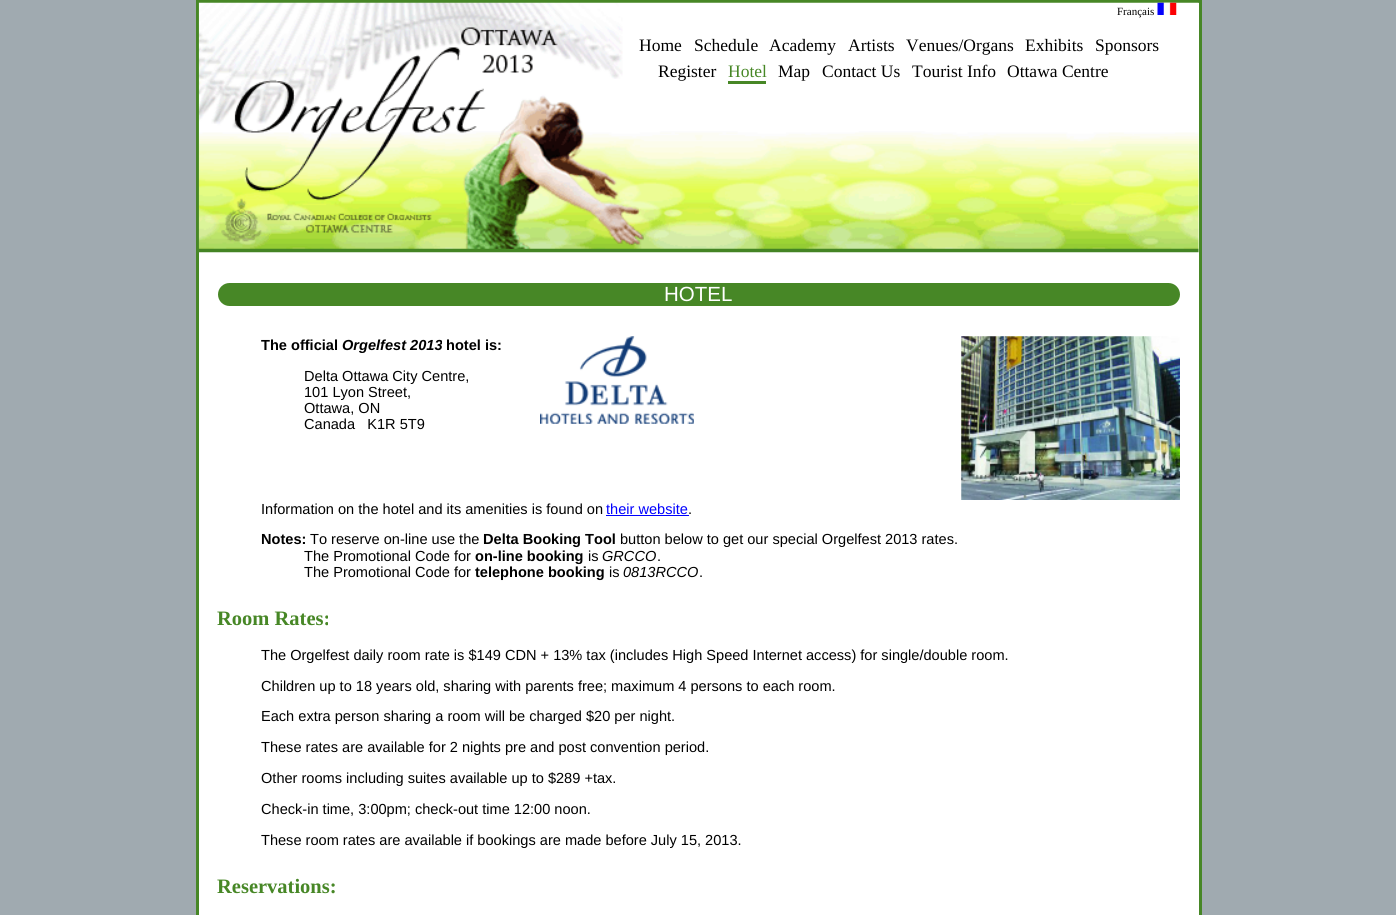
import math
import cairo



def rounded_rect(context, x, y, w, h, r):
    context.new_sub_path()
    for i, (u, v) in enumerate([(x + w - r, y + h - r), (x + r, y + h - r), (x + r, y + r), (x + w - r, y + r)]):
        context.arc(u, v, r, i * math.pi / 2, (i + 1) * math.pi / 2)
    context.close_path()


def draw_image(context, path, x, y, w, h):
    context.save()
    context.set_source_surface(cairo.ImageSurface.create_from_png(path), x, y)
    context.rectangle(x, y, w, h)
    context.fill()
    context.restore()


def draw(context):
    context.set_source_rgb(160 / 255, 170 / 255, 176 / 255)
    context.paint()
    context.set_source_rgb(1, 1, 1)
    context.rectangle(199, 3, 1000, 912)
    context.fill()
    context.set_source_rgb(71 / 255, 135 / 255, 38 / 255)
    context.rectangle(196, 0, 1005, 3)
    context.fill()
    context.rectangle(1199, 0, 3, 915)
    context.fill()
    context.rectangle(196, 0, 3, 915)
    context.fill()
    draw_image(context, "images/1.png", 198, 2, 1001, 251)
    draw_image(context, "images/2.png", 1157, 2, 20, 13)
    context.rectangle(728, 81, 38, 3)
    context.fill()
    rounded_rect(context, 218, 283, 962, 23, 11.5)
    context.fill()
    draw_image(context, "images/3.png", 540, 336, 154, 88)
    draw_image(context, "images/4.png", 961, 336, 219, 164)
    context.set_source_rgb(0, 0, 1)
    context.rectangle(606, 515, 83, 1)
    context.fill()
    context.select_font_face("Liberation Serif")
    context.set_font_size(11)
    context.set_source_rgb(0, 0, 0)
    context.move_to(1117, 15)
    context.show_text("Français")
    context.set_font_size(17.5)
    context.move_to(639, 51)
    context.show_text("Home")
    context.move_to(694, 51)
    context.show_text("Schedule")
    context.move_to(769, 51)
    context.show_text("Academy")
    context.move_to(848, 51)
    context.show_text("Artists")
    context.move_to(906, 51)
    context.show_text("Venues/Organs")
    context.move_to(1025, 51)
    context.show_text("Exhibits")
    context.move_to(1095, 51)
    context.show_text("Sponsors")
    context.move_to(658, 77)
    context.show_text("Register")
    context.set_source_rgb(71 / 255, 135 / 255, 38 / 255)
    context.move_to(728, 77)
    context.show_text("Hotel")
    context.set_source_rgb(0, 0, 0)
    context.move_to(778, 77)
    context.show_text("Map")
    context.move_to(822, 77)
    context.show_text("Contact Us")
    context.move_to(912, 77)
    context.show_text("Tourist Info")
    context.move_to(1007, 77)
    context.show_text("Ottawa Centre")
    context.select_font_face("Liberation Sans")
    context.set_font_size(20.5)
    context.set_source_rgb(1, 1, 1)
    context.move_to(664, 301)
    context.show_text("HOTEL")
    context.select_font_face("Liberation Sans", cairo.FontSlant.NORMAL, cairo.FontWeight.BOLD)
    context.set_font_size(14.58)
    context.set_source_rgb(0, 0, 0)
    context.move_to(261, 350)
    context.show_text("The official")
    context.select_font_face("Liberation Sans", cairo.FontSlant.ITALIC, cairo.FontWeight.BOLD)
    context.move_to(342, 350)
    context.show_text("Orgelfest 2013")
    context.select_font_face("Liberation Sans", cairo.FontSlant.NORMAL, cairo.FontWeight.BOLD)
    context.move_to(446, 350)
    context.show_text("hotel is:")
    context.select_font_face("Liberation Sans")
    context.move_to(304, 381)
    context.show_text("Delta Ottawa City Centre,")
    context.move_to(304, 397)
    context.show_text("101 Lyon Street,")
    context.move_to(304, 413)
    context.show_text("Ottawa, ON")
    context.move_to(304, 429)
    context.show_text("Canada   K1R 5T9")
    context.move_to(261, 514)
    context.show_text("Information on the hotel and its amenities is found on")
    context.set_source_rgb(0, 0, 1)
    context.move_to(606, 514)
    context.show_text("their website")
    context.set_source_rgb(0, 0, 0)
    context.move_to(688, 514)
    context.show_text(".")
    context.select_font_face("Liberation Sans", cairo.FontSlant.NORMAL, cairo.FontWeight.BOLD)
    context.move_to(261, 544)
    context.show_text("Notes:")
    context.select_font_face("Liberation Sans")
    context.move_to(310, 544)
    context.show_text("To reserve on-line use the")
    context.select_font_face("Liberation Sans", cairo.FontSlant.NORMAL, cairo.FontWeight.BOLD)
    context.move_to(483, 544)
    context.show_text("Delta Booking Tool")
    context.select_font_face("Liberation Sans")
    context.move_to(620, 544)
    context.show_text("button below to get our special Orgelfest 2013 rates.")
    context.move_to(304, 561)
    context.show_text("The Promotional Code for")
    context.select_font_face("Liberation Sans", cairo.FontSlant.NORMAL, cairo.FontWeight.BOLD)
    context.move_to(475, 561)
    context.show_text("on-line booking")
    context.select_font_face("Liberation Sans")
    context.move_to(588, 561)
    context.show_text("is")
    context.select_font_face("Liberation Sans", cairo.FontSlant.ITALIC)
    context.move_to(602, 561)
    context.show_text("GRCCO")
    context.select_font_face("Liberation Sans")
    context.move_to(657, 561)
    context.show_text(".")
    context.move_to(304, 577)
    context.show_text("The Promotional Code for")
    context.select_font_face("Liberation Sans", cairo.FontSlant.NORMAL, cairo.FontWeight.BOLD)
    context.move_to(475, 577)
    context.show_text("telephone booking")
    context.select_font_face("Liberation Sans")
    context.move_to(609, 577)
    context.show_text("is")
    context.select_font_face("Liberation Sans", cairo.FontSlant.ITALIC)
    context.move_to(623, 577)
    context.show_text("0813RCCO")
    context.select_font_face("Liberation Sans")
    context.move_to(699, 577)
    context.show_text(".")
    context.select_font_face("Liberation Serif", cairo.FontSlant.NORMAL, cairo.FontWeight.BOLD)
    context.set_font_size(20.5)
    context.set_source_rgb(71 / 255, 135 / 255, 38 / 255)
    context.move_to(217, 625)
    context.show_text("Room Rates:")
    context.select_font_face("Liberation Sans")
    context.set_font_size(14.58)
    context.set_source_rgb(0, 0, 0)
    context.move_to(261, 660)
    context.show_text("The Orgelfest daily room rate is $149 CDN + 13% tax (includes High Speed Internet access) for single/double room.")
    context.move_to(261, 691)
    context.show_text("Children up to 18 years old, sharing with parents free; maximum 4 persons to each room.")
    context.move_to(261, 721)
    context.show_text("Each extra person sharing a room will be charged $20 per night.")
    context.move_to(261, 752)
    context.show_text("These rates are available for 2 nights pre and post convention period.")
    context.move_to(261, 783)
    context.show_text("Other rooms including suites available up to $289 +tax.")
    context.move_to(261, 814)
    context.show_text("Check-in time, 3:00pm; check-out time 12:00 noon.")
    context.move_to(261, 845)
    context.show_text("These room rates are available if bookings are made before July 15, 2013.")
    context.select_font_face("Liberation Serif", cairo.FontSlant.NORMAL, cairo.FontWeight.BOLD)
    context.set_font_size(20.5)
    context.set_source_rgb(71 / 255, 135 / 255, 38 / 255)
    context.move_to(217, 893)
    context.show_text("Reservations:")


surface = cairo.ImageSurface(cairo.Format.RGB24, 1396, 915)
context = cairo.Context(surface)
options = cairo.FontOptions()
options.set_hint_metrics(cairo.HintMetrics.OFF)
options.set_hint_style(cairo.HintStyle.NONE)
context.set_font_options(options)
context.set_miter_limit(4)
draw(context)
surface.write_to_png("out.png")
